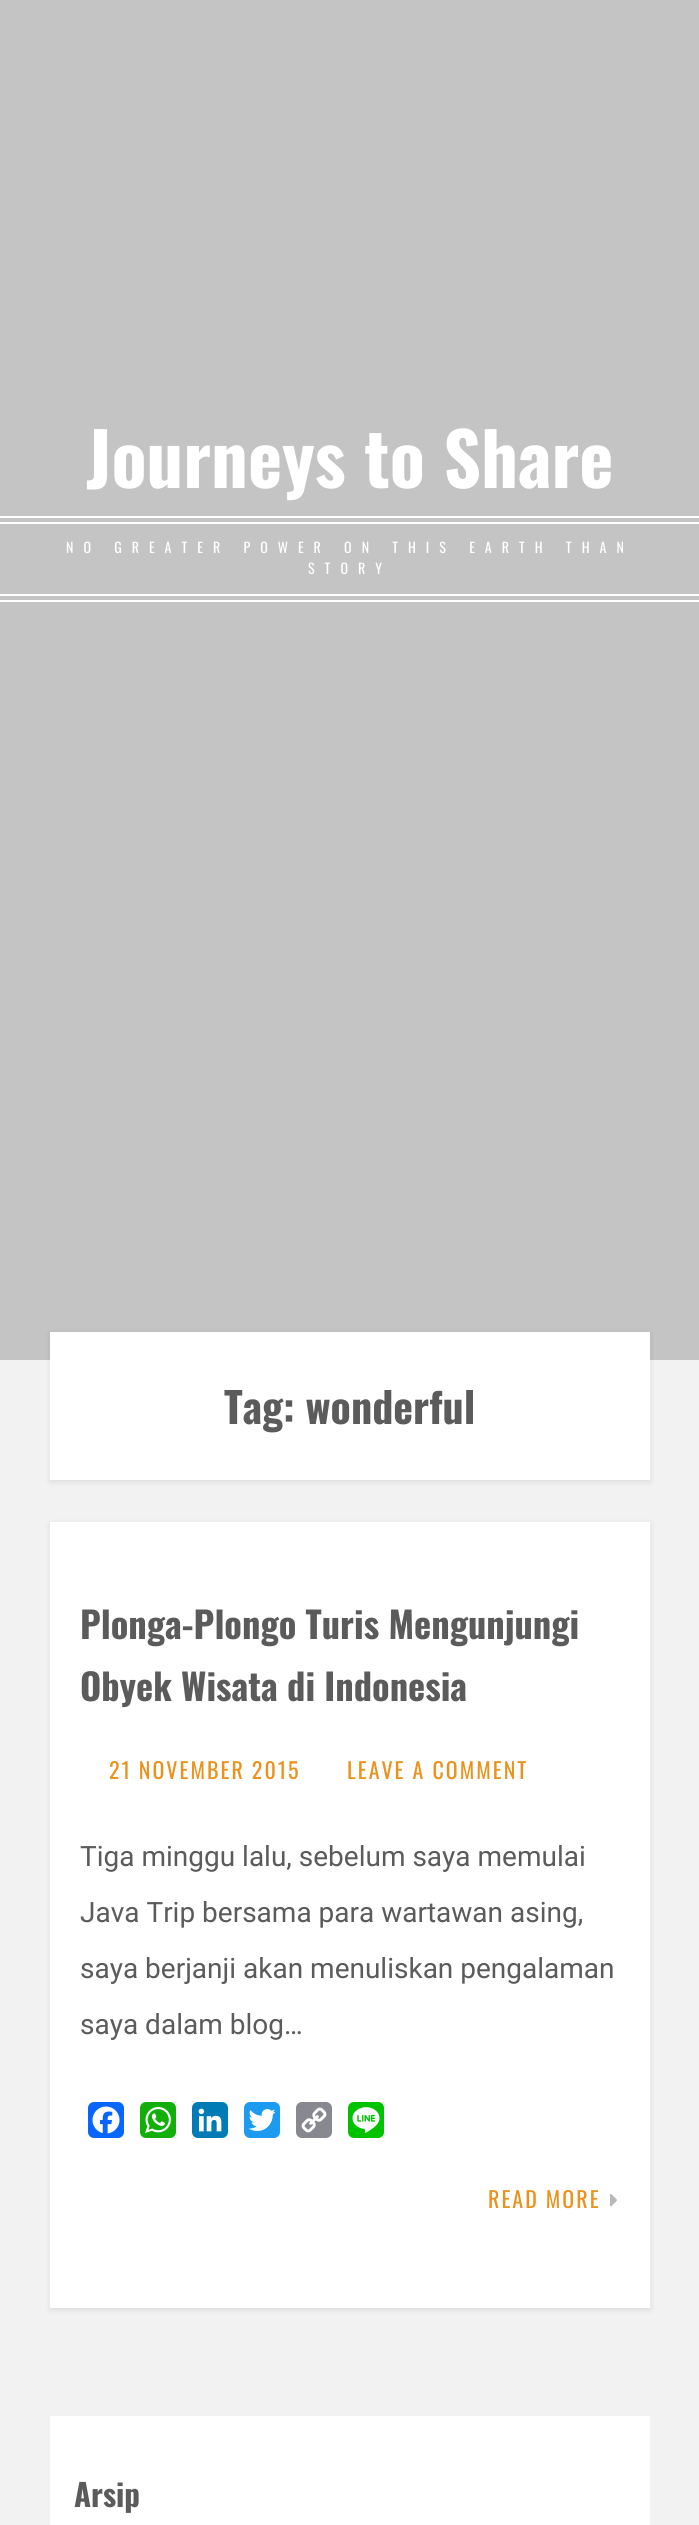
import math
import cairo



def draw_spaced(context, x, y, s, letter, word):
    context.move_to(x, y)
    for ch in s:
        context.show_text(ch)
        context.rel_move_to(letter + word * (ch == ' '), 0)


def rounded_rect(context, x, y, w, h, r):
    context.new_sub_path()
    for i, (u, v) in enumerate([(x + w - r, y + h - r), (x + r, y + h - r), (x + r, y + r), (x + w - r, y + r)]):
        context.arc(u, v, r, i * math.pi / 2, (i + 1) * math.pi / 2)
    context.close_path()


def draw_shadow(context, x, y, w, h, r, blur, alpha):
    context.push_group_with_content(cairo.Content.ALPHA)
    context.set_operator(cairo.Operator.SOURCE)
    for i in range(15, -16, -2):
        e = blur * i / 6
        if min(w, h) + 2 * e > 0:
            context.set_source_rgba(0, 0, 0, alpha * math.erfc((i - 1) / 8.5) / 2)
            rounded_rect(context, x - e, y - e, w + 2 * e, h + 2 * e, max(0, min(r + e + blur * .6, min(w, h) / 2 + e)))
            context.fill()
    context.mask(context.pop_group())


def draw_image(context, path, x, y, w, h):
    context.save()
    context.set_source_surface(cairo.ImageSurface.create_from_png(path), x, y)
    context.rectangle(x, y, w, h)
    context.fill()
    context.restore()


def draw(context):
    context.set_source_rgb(242 / 255, 242 / 255, 242 / 255)
    context.paint()
    context.set_source_rgb(196 / 255, 196 / 255, 196 / 255)
    context.rectangle(0, 0, 699, 1360)
    context.fill()
    context.set_source_rgb(1, 1, 1)
    context.rectangle(0, 516, 699, 2)
    context.fill()
    context.rectangle(0, 522, 699, 2)
    context.fill()
    context.rectangle(0, 594, 699, 2)
    context.fill()
    context.rectangle(0, 600, 699, 2)
    context.fill()
    context.set_source_rgb(13 / 255, 13 / 255, 13 / 255)
    draw_shadow(context, 50, 1334, 600, 148, 0, 3, 0.1)
    context.set_source_rgb(1, 1, 1)
    context.rectangle(50, 1332, 600, 148)
    context.fill()
    context.set_source_rgb(13 / 255, 13 / 255, 13 / 255)
    draw_shadow(context, 50, 1524, 600, 786, 0, 3, 0.1)
    context.set_source_rgb(1, 1, 1)
    context.rectangle(50, 1522, 600, 786)
    context.fill()
    context.set_source_rgb(8 / 255, 102 / 255, 1)
    rounded_rect(context, 88, 2102, 36, 36, 6)
    context.fill()
    draw_image(context, "images/1.png", 92, 2106, 28, 28)
    context.set_source_rgb(18 / 255, 175 / 255, 10 / 255)
    rounded_rect(context, 140, 2102, 36, 36, 6)
    context.fill()
    draw_image(context, "images/2.png", 145, 2107, 26, 26)
    context.set_source_rgb(0, 123 / 255, 181 / 255)
    rounded_rect(context, 192, 2102, 36, 36, 6)
    context.fill()
    draw_image(context, "images/3.png", 198, 2108, 24, 24)
    context.set_source_rgb(29 / 255, 155 / 255, 240 / 255)
    rounded_rect(context, 244, 2102, 36, 36, 6)
    context.fill()
    draw_image(context, "images/4.png", 248, 2109, 28, 22)
    context.set_source_rgb(136 / 255, 137 / 255, 144 / 255)
    rounded_rect(context, 296, 2102, 36, 36, 6)
    context.fill()
    draw_image(context, "images/5.png", 301, 2107, 26, 26)
    context.set_source_rgb(0, 195 / 255, 0)
    rounded_rect(context, 348, 2102, 36, 36, 6)
    context.fill()
    draw_image(context, "images/6.png", 352, 2107, 28, 26)
    draw_image(context, "images/7.png", 610, 2194, 7, 13)
    context.set_source_rgb(1, 1, 1)
    context.rectangle(50, 2416, 600, 109)
    context.fill()
    context.select_font_face("Oswald", cairo.FontSlant.NORMAL, cairo.FontWeight.BOLD)
    context.set_font_size(72.75)
    context.move_to(86, 488)
    context.show_text("Journeys to Share")
    context.select_font_face("Oswald")
    context.set_font_size(14)
    draw_spaced(context, 66, 553, "NO GREATER POWER ON THIS EARTH THAN", 10, 0)
    draw_spaced(context, 308, 574, "STORY", 10, 0)
    context.select_font_face("Oswald", cairo.FontSlant.NORMAL, cairo.FontWeight.BOLD)
    context.set_font_size(42)
    context.set_source_rgb(91 / 255, 91 / 255, 91 / 255)
    context.move_to(224, 1424)
    context.show_text("Tag: wonderful")
    context.set_font_size(36.4)
    context.move_to(80, 1639)
    context.show_text("Plonga-Plongo Turis Mengunjungi")
    context.move_to(80, 1701)
    context.show_text("Obyek Wisata di Indonesia")
    context.select_font_face("Oswald")
    context.set_font_size(22)
    context.set_source_rgb(235 / 255, 145 / 255, 28 / 255)
    draw_spaced(context, 109, 1779, "21 NOVEMBER 2015", 2, 0)
    draw_spaced(context, 347, 1779, "LEAVE A COMMENT", 2, 0)
    context.select_font_face("Roboto")
    context.set_font_size(28)
    context.set_source_rgb(91 / 255, 91 / 255, 91 / 255)
    context.move_to(80, 1866)
    context.show_text("Tiga minggu lalu, sebelum saya memulai")
    context.move_to(80, 1922)
    context.show_text("Java Trip bersama para wartawan asing,")
    context.move_to(80, 1978)
    context.show_text("saya berjanji akan menuliskan pengalaman")
    context.move_to(80, 2034)
    context.show_text("saya dalam blog…")
    context.select_font_face("Oswald")
    context.set_font_size(22)
    context.set_source_rgb(235 / 255, 145 / 255, 28 / 255)
    draw_spaced(context, 488, 2208, "READ MORE", 2, 0)
    context.select_font_face("Oswald", cairo.FontSlant.NORMAL, cairo.FontWeight.BOLD)
    context.set_font_size(31)
    context.set_source_rgb(91 / 255, 91 / 255, 91 / 255)
    context.move_to(74, 2507)
    context.show_text("Arsip")


surface = cairo.ImageSurface(cairo.Format.RGB24, 699, 2525)
context = cairo.Context(surface)
options = cairo.FontOptions()
options.set_hint_metrics(cairo.HintMetrics.OFF)
options.set_hint_style(cairo.HintStyle.NONE)
context.set_font_options(options)
context.set_miter_limit(4)
draw(context)
surface.write_to_png("out.png")
